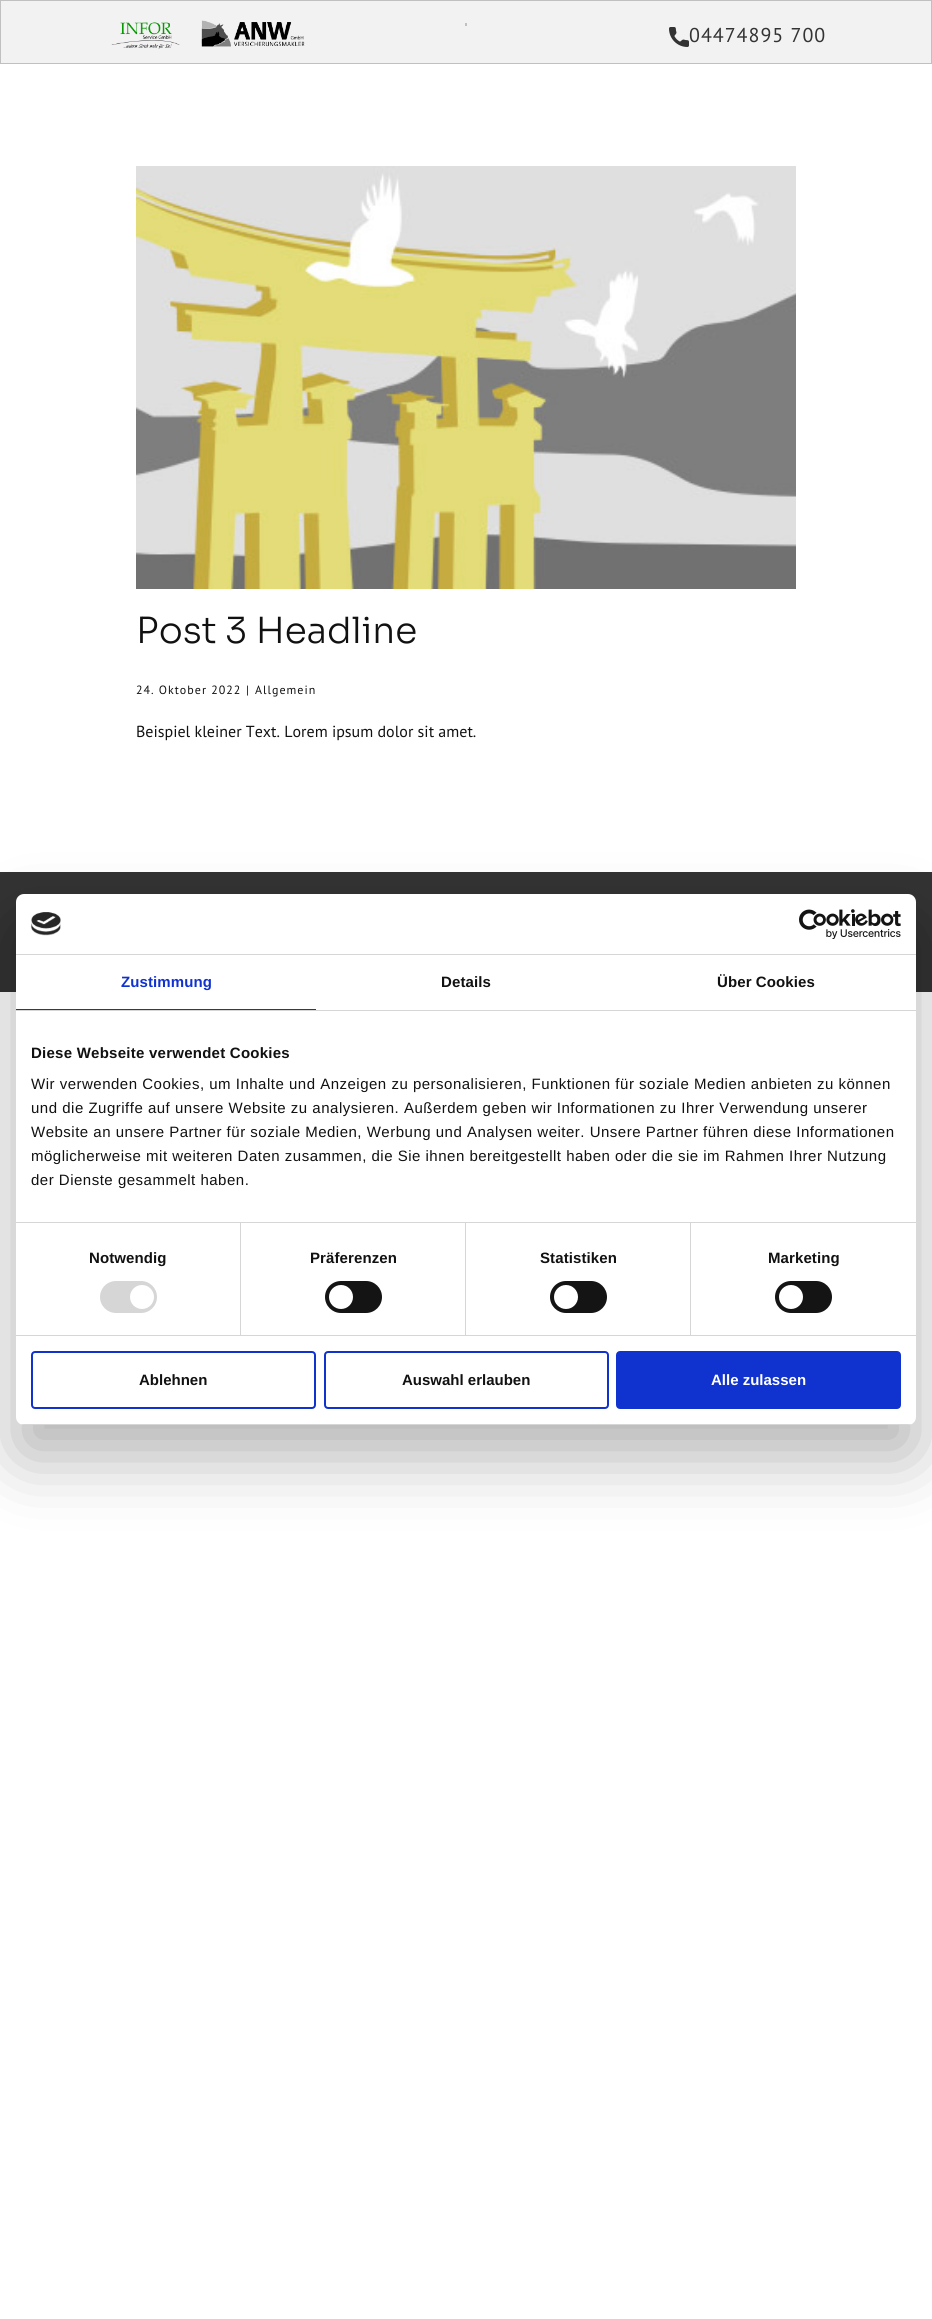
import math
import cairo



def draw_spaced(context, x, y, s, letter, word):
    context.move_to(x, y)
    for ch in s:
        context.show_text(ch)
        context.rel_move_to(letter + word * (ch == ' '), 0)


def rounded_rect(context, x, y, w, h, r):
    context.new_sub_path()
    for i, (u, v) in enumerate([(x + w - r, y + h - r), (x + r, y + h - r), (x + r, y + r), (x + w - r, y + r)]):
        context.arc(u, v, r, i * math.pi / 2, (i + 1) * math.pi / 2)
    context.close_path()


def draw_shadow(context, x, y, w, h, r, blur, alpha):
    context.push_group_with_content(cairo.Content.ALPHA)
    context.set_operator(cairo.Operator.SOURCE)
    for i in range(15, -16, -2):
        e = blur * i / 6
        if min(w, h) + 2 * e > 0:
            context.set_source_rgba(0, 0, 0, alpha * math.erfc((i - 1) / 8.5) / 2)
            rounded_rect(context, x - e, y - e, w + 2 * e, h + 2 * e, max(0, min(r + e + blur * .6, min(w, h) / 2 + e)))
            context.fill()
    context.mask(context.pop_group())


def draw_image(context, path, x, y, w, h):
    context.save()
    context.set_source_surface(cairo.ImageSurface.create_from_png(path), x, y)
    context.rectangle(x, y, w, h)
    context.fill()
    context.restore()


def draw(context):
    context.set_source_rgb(1, 1, 1)
    context.paint()
    context.set_source_rgb(242 / 255, 242 / 255, 242 / 255)
    context.rectangle(0.5, 0.5, 931, 63)
    context.fill_preserve()
    context.set_source_rgb(192 / 255, 192 / 255, 192 / 255)
    context.set_line_width(1)
    context.stroke()
    draw_image(context, "images/1.png", 111, 22, 69, 27)
    draw_image(context, "images/2.png", 201, 20, 104, 27)
    context.rectangle(465, 23, 2, 1)
    context.fill()
    context.rectangle(465, 24, 2, 2)
    context.fill()
    draw_image(context, "images/3.png", 669, 27, 20, 20)
    draw_image(context, "images/4.png", 136, 166, 660, 423)
    context.set_source_rgb(51 / 255, 51 / 255, 51 / 255)
    context.rectangle(0, 872, 932, 120)
    context.fill()
    context.set_source_rgb(0, 0, 0)
    draw_shadow(context, 16, 926, 900, 531, 8, 34, 0.3)
    context.set_source_rgb(1, 1, 1)
    rounded_rect(context, 16, 894, 900, 531, 8)
    context.fill()
    context.set_source_rgb(214 / 255, 214 / 255, 214 / 255)
    context.rectangle(16, 954, 900, 1)
    context.fill()
    draw_image(context, "images/5.png", 31, 912, 30, 24)
    draw_image(context, "images/6.png", 799, 909, 102, 30)
    context.rectangle(16, 1010, 900, 1)
    context.fill()
    context.set_source_rgb(16 / 255, 50 / 255, 207 / 255)
    context.rectangle(16, 1009, 300, 1)
    context.fill()
    context.set_source_rgb(214 / 255, 214 / 255, 214 / 255)
    context.rectangle(16, 1222, 900, 1)
    context.fill()
    context.rectangle(16, 1335, 900, 1)
    context.fill()
    context.rectangle(240, 1223, 1, 112)
    context.fill()
    rounded_rect(context, 100, 1281, 57, 32, 16)
    context.fill()
    context.set_source_rgb(1, 1, 1)
    context.arc(142, 1297, 12, 0, 2 * math.pi)
    context.fill()
    context.set_source_rgb(214 / 255, 214 / 255, 214 / 255)
    context.rectangle(465, 1223, 1, 112)
    context.fill()
    context.set_source_rgb(20 / 255, 20 / 255, 20 / 255)
    rounded_rect(context, 325, 1281, 57, 32, 16)
    context.fill()
    context.set_source_rgb(1, 1, 1)
    context.arc(341, 1297, 12, 0, 2 * math.pi)
    context.fill()
    context.set_source_rgb(214 / 255, 214 / 255, 214 / 255)
    context.rectangle(690, 1223, 1, 112)
    context.fill()
    context.set_source_rgb(20 / 255, 20 / 255, 20 / 255)
    rounded_rect(context, 550, 1281, 57, 32, 16)
    context.fill()
    context.set_source_rgb(1, 1, 1)
    context.arc(566, 1297, 12, 0, 2 * math.pi)
    context.fill()
    context.set_source_rgb(20 / 255, 20 / 255, 20 / 255)
    rounded_rect(context, 775, 1281, 57, 32, 16)
    context.fill()
    context.set_source_rgb(1, 1, 1)
    context.arc(791, 1297, 12, 0, 2 * math.pi)
    context.fill()
    context.save()
    rounded_rect(context, 16, 894, 900, 531, 8)
    context.clip()
    context.set_source_rgb(214 / 255, 214 / 255, 214 / 255)
    context.rectangle(16, 1424, 900, 1)
    context.fill()
    context.restore()
    rounded_rect(context, 32, 1352, 283, 56, 3)
    context.set_source_rgb(16 / 255, 50 / 255, 207 / 255)
    context.set_line_width(2)
    context.stroke()
    rounded_rect(context, 325, 1352, 283, 56, 3)
    context.stroke()
    rounded_rect(context, 617, 1352, 283, 56, 3)
    context.fill_preserve()
    context.stroke()
    context.select_font_face("PT Sans")
    context.set_font_size(20)
    context.set_source_rgb(51 / 255, 51 / 255, 51 / 255)
    draw_spaced(context, 689, 42, "04474895 700", 1, 0)
    context.select_font_face("Sora Light")
    context.set_font_size(36)
    context.set_source_rgb(17 / 255, 17 / 255, 17 / 255)
    context.move_to(136, 643)
    context.show_text("Post 3 Headline")
    context.select_font_face("PT Sans")
    context.set_font_size(12)
    draw_spaced(context, 136, 694, "24. Oktober 2022", 1, 0)
    draw_spaced(context, 246, 694, "|", 1, 0)
    draw_spaced(context, 255, 694, "Allgemein", 1, 0)
    context.set_font_size(16)
    context.move_to(136, 737)
    context.show_text("Beispiel kleiner Text. Lorem ipsum dolor sit amet.")
    context.select_font_face("Liberation Sans", cairo.FontSlant.NORMAL, cairo.FontWeight.BOLD)
    context.set_font_size(15)
    context.set_source_rgb(16 / 255, 50 / 255, 207 / 255)
    draw_spaced(context, 121, 987, "Zustimmung", 0.1, 0)
    context.set_source_rgb(17 / 255, 17 / 255, 17 / 255)
    draw_spaced(context, 441, 987, "Details", 0.1, 0)
    draw_spaced(context, 717, 987, "Über Cookies", 0.1, 0)
    draw_spaced(context, 31, 1058, "Diese Webseite verwendet Cookies", 0.25, 0)
    context.select_font_face("Liberation Sans")
    draw_spaced(context, 31, 1089, "Wir verwenden Cookies, um Inhalte und Anzeigen zu personalisieren, Funktionen für soziale Medien anbieten zu können", 0.5, 0)
    draw_spaced(context, 31, 1113, "und die Zugriffe auf unsere Website zu analysieren. Außerdem geben wir Informationen zu Ihrer Verwendung unserer", 0.5, 0)
    draw_spaced(context, 31, 1137, "Website an unsere Partner für soziale Medien, Werbung und Analysen weiter. Unsere Partner führen diese Informationen", 0.5, 0)
    draw_spaced(context, 31, 1161, "möglicherweise mit weiteren Daten zusammen, die Sie ihnen bereitgestellt haben oder die sie im Rahmen Ihrer Nutzung", 0.5, 0)
    draw_spaced(context, 31, 1185, "der Dienste gesammelt haben.", 0.5, 0)
    context.select_font_face("Liberation Sans", cairo.FontSlant.NORMAL, cairo.FontWeight.BOLD)
    draw_spaced(context, 89, 1263, "Notwendig", 0.1, 0)
    draw_spaced(context, 310, 1263, "Präferenzen", 0.1, 0)
    draw_spaced(context, 540, 1263, "Statistiken", 0.1, 0)
    draw_spaced(context, 768, 1263, "Marketing", 0.1, 0)
    context.move_to(139, 1385)
    context.show_text("Ablehnen")
    context.move_to(402, 1385)
    context.show_text("Auswahl erlauben")
    context.set_source_rgb(1, 1, 1)
    context.move_to(711, 1385)
    context.show_text("Alle zulassen")


surface = cairo.ImageSurface(cairo.Format.RGB24, 932, 2319)
context = cairo.Context(surface)
options = cairo.FontOptions()
options.set_hint_metrics(cairo.HintMetrics.OFF)
options.set_hint_style(cairo.HintStyle.NONE)
context.set_font_options(options)
context.set_miter_limit(4)
draw(context)
surface.write_to_png("out.png")
